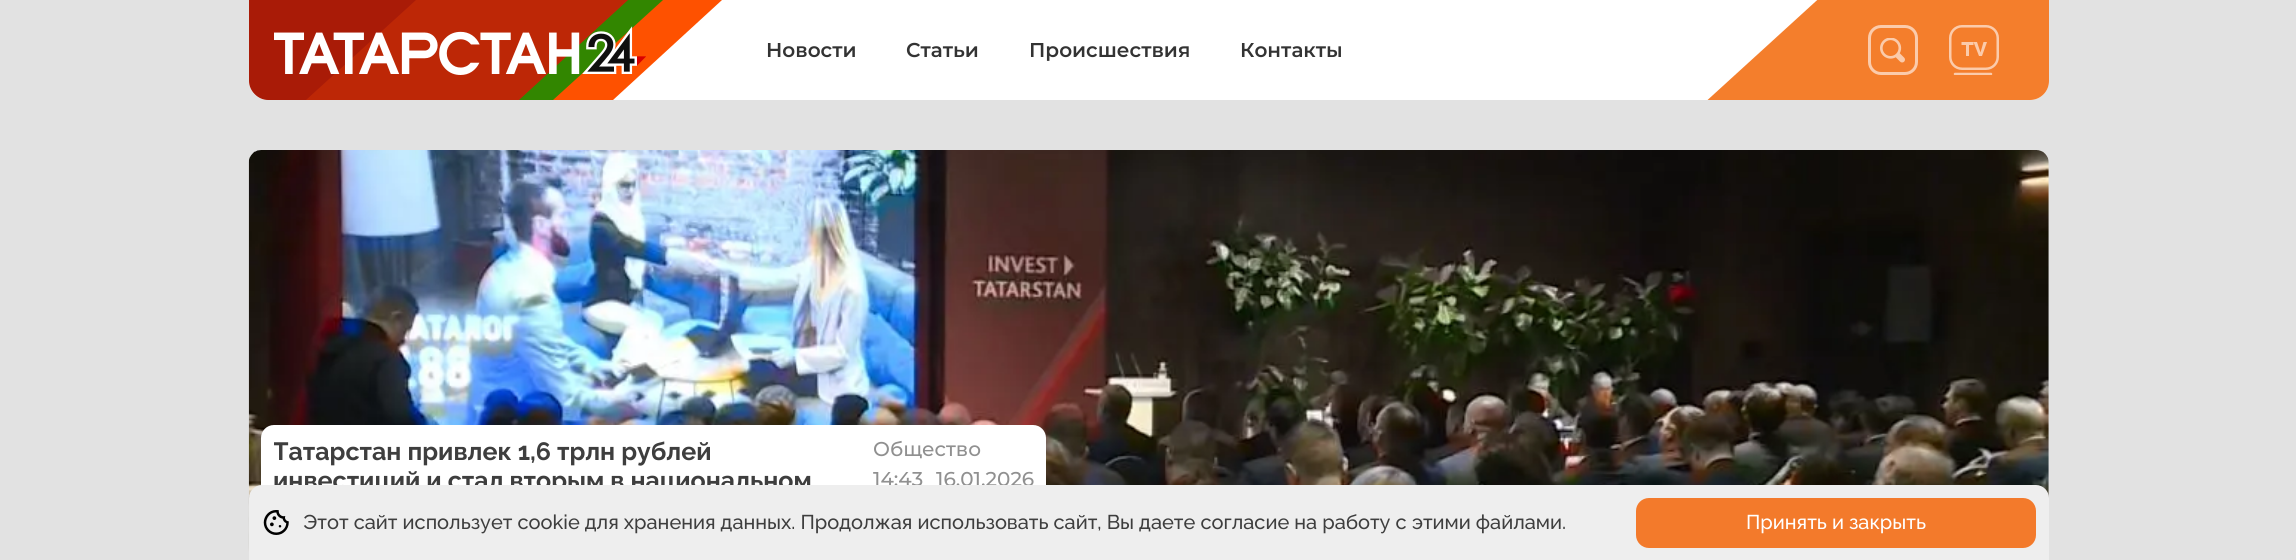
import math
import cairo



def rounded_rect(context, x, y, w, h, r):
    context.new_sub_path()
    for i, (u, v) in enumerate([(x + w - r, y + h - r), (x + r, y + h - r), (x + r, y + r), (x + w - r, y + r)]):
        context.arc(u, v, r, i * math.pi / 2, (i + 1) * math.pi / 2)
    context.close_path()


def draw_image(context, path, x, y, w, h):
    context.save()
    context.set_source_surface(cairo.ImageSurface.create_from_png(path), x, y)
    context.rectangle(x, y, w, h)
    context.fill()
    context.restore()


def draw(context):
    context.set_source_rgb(226 / 255, 226 / 255, 226 / 255)
    context.paint()
    context.set_source_rgb(1, 1, 1)
    context.new_path()
    context.move_to(249, 0)
    context.line_to(2049, 0)
    context.line_to(2049, 81)
    context.curve_to(2049, 91.5, 2040.5, 100, 2030, 100)
    context.line_to(268, 100)
    context.curve_to(257.5, 100, 249, 91.5, 249, 81)
    context.close_path()
    context.fill()
    context.set_source_rgb(254 / 255, 81 / 255, 0)
    context.new_path()
    context.move_to(722, 0)
    context.line_to(500, 0)
    context.line_to(390, 100)
    context.line_to(613, 100)
    context.close_path()
    context.fill()
    context.set_source_rgb(50 / 255, 134 / 255, 0)
    context.new_path()
    context.move_to(663, 0)
    context.line_to(440, 0)
    context.line_to(330, 100)
    context.line_to(553, 100)
    context.close_path()
    context.fill()
    context.set_source_rgb(189 / 255, 39 / 255, 6 / 255)
    context.new_path()
    context.move_to(628, 0)
    context.line_to(380, 0)
    context.line_to(270, 100)
    context.line_to(519, 100)
    context.close_path()
    context.fill()
    context.set_source_rgb(169 / 255, 27 / 255, 7 / 255)
    context.new_path()
    context.move_to(249, 0)
    context.line_to(249, 81)
    context.curve_to(249, 91, 258, 100, 268, 100)
    context.line_to(306, 100)
    context.line_to(416, 0)
    context.close_path()
    context.fill()
    draw_image(context, "images/1.png", 274, 26, 372, 49)
    context.set_source_rgb(244 / 255, 126 / 255, 44 / 255)
    context.new_path()
    context.move_to(1818, 0)
    context.line_to(2049, 0)
    context.line_to(2049, 81)
    context.curve_to(2049, 91.5, 2040.5, 100, 2030, 100)
    context.line_to(1818, 100)
    context.close_path()
    context.fill()
    context.save()
    context.rectangle(1686, 0, 313, 100)
    context.clip()
    context.new_path()
    context.move_to(1774, 344)
    context.line_to(1623, 177)
    context.line_to(2085, -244)
    context.line_to(2236, -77)
    context.close_path()
    context.fill()
    context.restore()
    rounded_rect(context, 1869.5, 26.5, 47, 47, 11.5)
    context.set_source_rgb(251 / 255, 203 / 255, 171 / 255)
    context.set_line_width(3)
    context.stroke()
    draw_image(context, "images/2.png", 1880, 38, 25, 25)
    context.save()
    context.rectangle(1949, 25, 50, 50)
    context.clip()
    context.new_path()
    context.move_to(1955, 74)
    context.line_to(1991, 74)
    context.set_line_width(2.5)
    context.set_line_cap(cairo.LineCap.ROUND)
    context.stroke()
    context.restore()
    rounded_rect(context, 1950.25, 26.25, 47.5, 42.5, 11.75)
    context.set_line_width(2.5)
    context.stroke()
    context.new_path()
    context.move_to(1973.5, 45)
    context.line_to(1969, 45)
    context.line_to(1969, 56)
    context.line_to(1966, 56)
    context.line_to(1966, 45)
    context.line_to(1961.5, 45)
    context.line_to(1961.5, 42)
    context.line_to(1973.5, 42)
    context.close_path()
    context.move_to(1977, 42)
    context.line_to(1980.5, 52.5)
    context.line_to(1983.5, 42)
    context.line_to(1987, 42)
    context.line_to(1982, 56)
    context.line_to(1979, 56)
    context.line_to(1973.5, 42)
    context.close_path()
    context.fill()
    draw_image(context, "images/3.png", 248, 150, 1801, 402)
    context.set_source_rgb(1, 1, 1)
    rounded_rect(context, 261, 425, 785, 125, 13)
    context.fill()
    context.select_font_face("Montserrat SemiBold")
    context.set_font_size(20)
    context.set_source_rgb(51 / 255, 51 / 255, 51 / 255)
    context.move_to(766, 57)
    context.show_text("Новости")
    context.move_to(906, 57)
    context.show_text("Статьи")
    context.move_to(1029, 57)
    context.show_text("Происшествия")
    context.move_to(1240, 57)
    context.show_text("Контакты")
    context.save()
    context.rectangle(274, 438, 562, 86)
    context.clip()
    context.select_font_face("Raleway", cairo.FontSlant.NORMAL, cairo.FontWeight.BOLD)
    context.set_font_size(25)
    context.set_source_rgb(62 / 255, 62 / 255, 62 / 255)
    context.move_to(273, 460)
    context.show_text("Татарстан привлек 1,6 трлн рублей")
    context.restore()
    context.select_font_face("Raleway", cairo.FontSlant.NORMAL, cairo.FontWeight.BOLD)
    context.set_font_size(25)
    context.set_source_rgb(62 / 255, 62 / 255, 62 / 255)
    context.move_to(273, 489)
    context.show_text("инвестиций и стал вторым в национальном")
    context.select_font_face("Montserrat Medium")
    context.set_font_size(20)
    context.set_source_rgb(144 / 255, 144 / 255, 144 / 255)
    context.move_to(873, 456)
    context.show_text("Общество")
    context.move_to(873, 486)
    context.show_text("14:43")
    context.move_to(936, 486)
    context.show_text("16.01.2026")
    context.set_source_rgb(238 / 255, 238 / 255, 238 / 255)
    context.new_path()
    context.move_to(262, 485)
    context.line_to(2036, 485)
    context.curve_to(2043, 485, 2049, 491, 2049, 498)
    context.line_to(2049, 560)
    context.line_to(249, 560)
    context.line_to(249, 498)
    context.curve_to(249, 491, 255, 485, 262, 485)
    context.close_path()
    context.fill()
    draw_image(context, "images/4.png", 263, 510, 26, 25)
    context.select_font_face("Raleway Medium")
    context.set_source_rgb(62 / 255, 62 / 255, 62 / 255)
    context.move_to(303, 529)
    context.show_text("Этот сайт использует cookie для хранения данных. Продолжая использовать сайт, Вы даете согласие на работу с этими файлами.")
    context.set_source_rgb(243 / 255, 122 / 255, 43 / 255)
    rounded_rect(context, 1636, 498, 400, 50, 13)
    context.fill()
    context.set_source_rgb(1, 1, 1)
    context.move_to(1746, 529)
    context.show_text("Принять и закрыть")


surface = cairo.ImageSurface(cairo.Format.RGB24, 2296, 560)
context = cairo.Context(surface)
options = cairo.FontOptions()
options.set_hint_metrics(cairo.HintMetrics.OFF)
options.set_hint_style(cairo.HintStyle.NONE)
context.set_font_options(options)
context.set_miter_limit(4)
draw(context)
surface.write_to_png("out.png")
